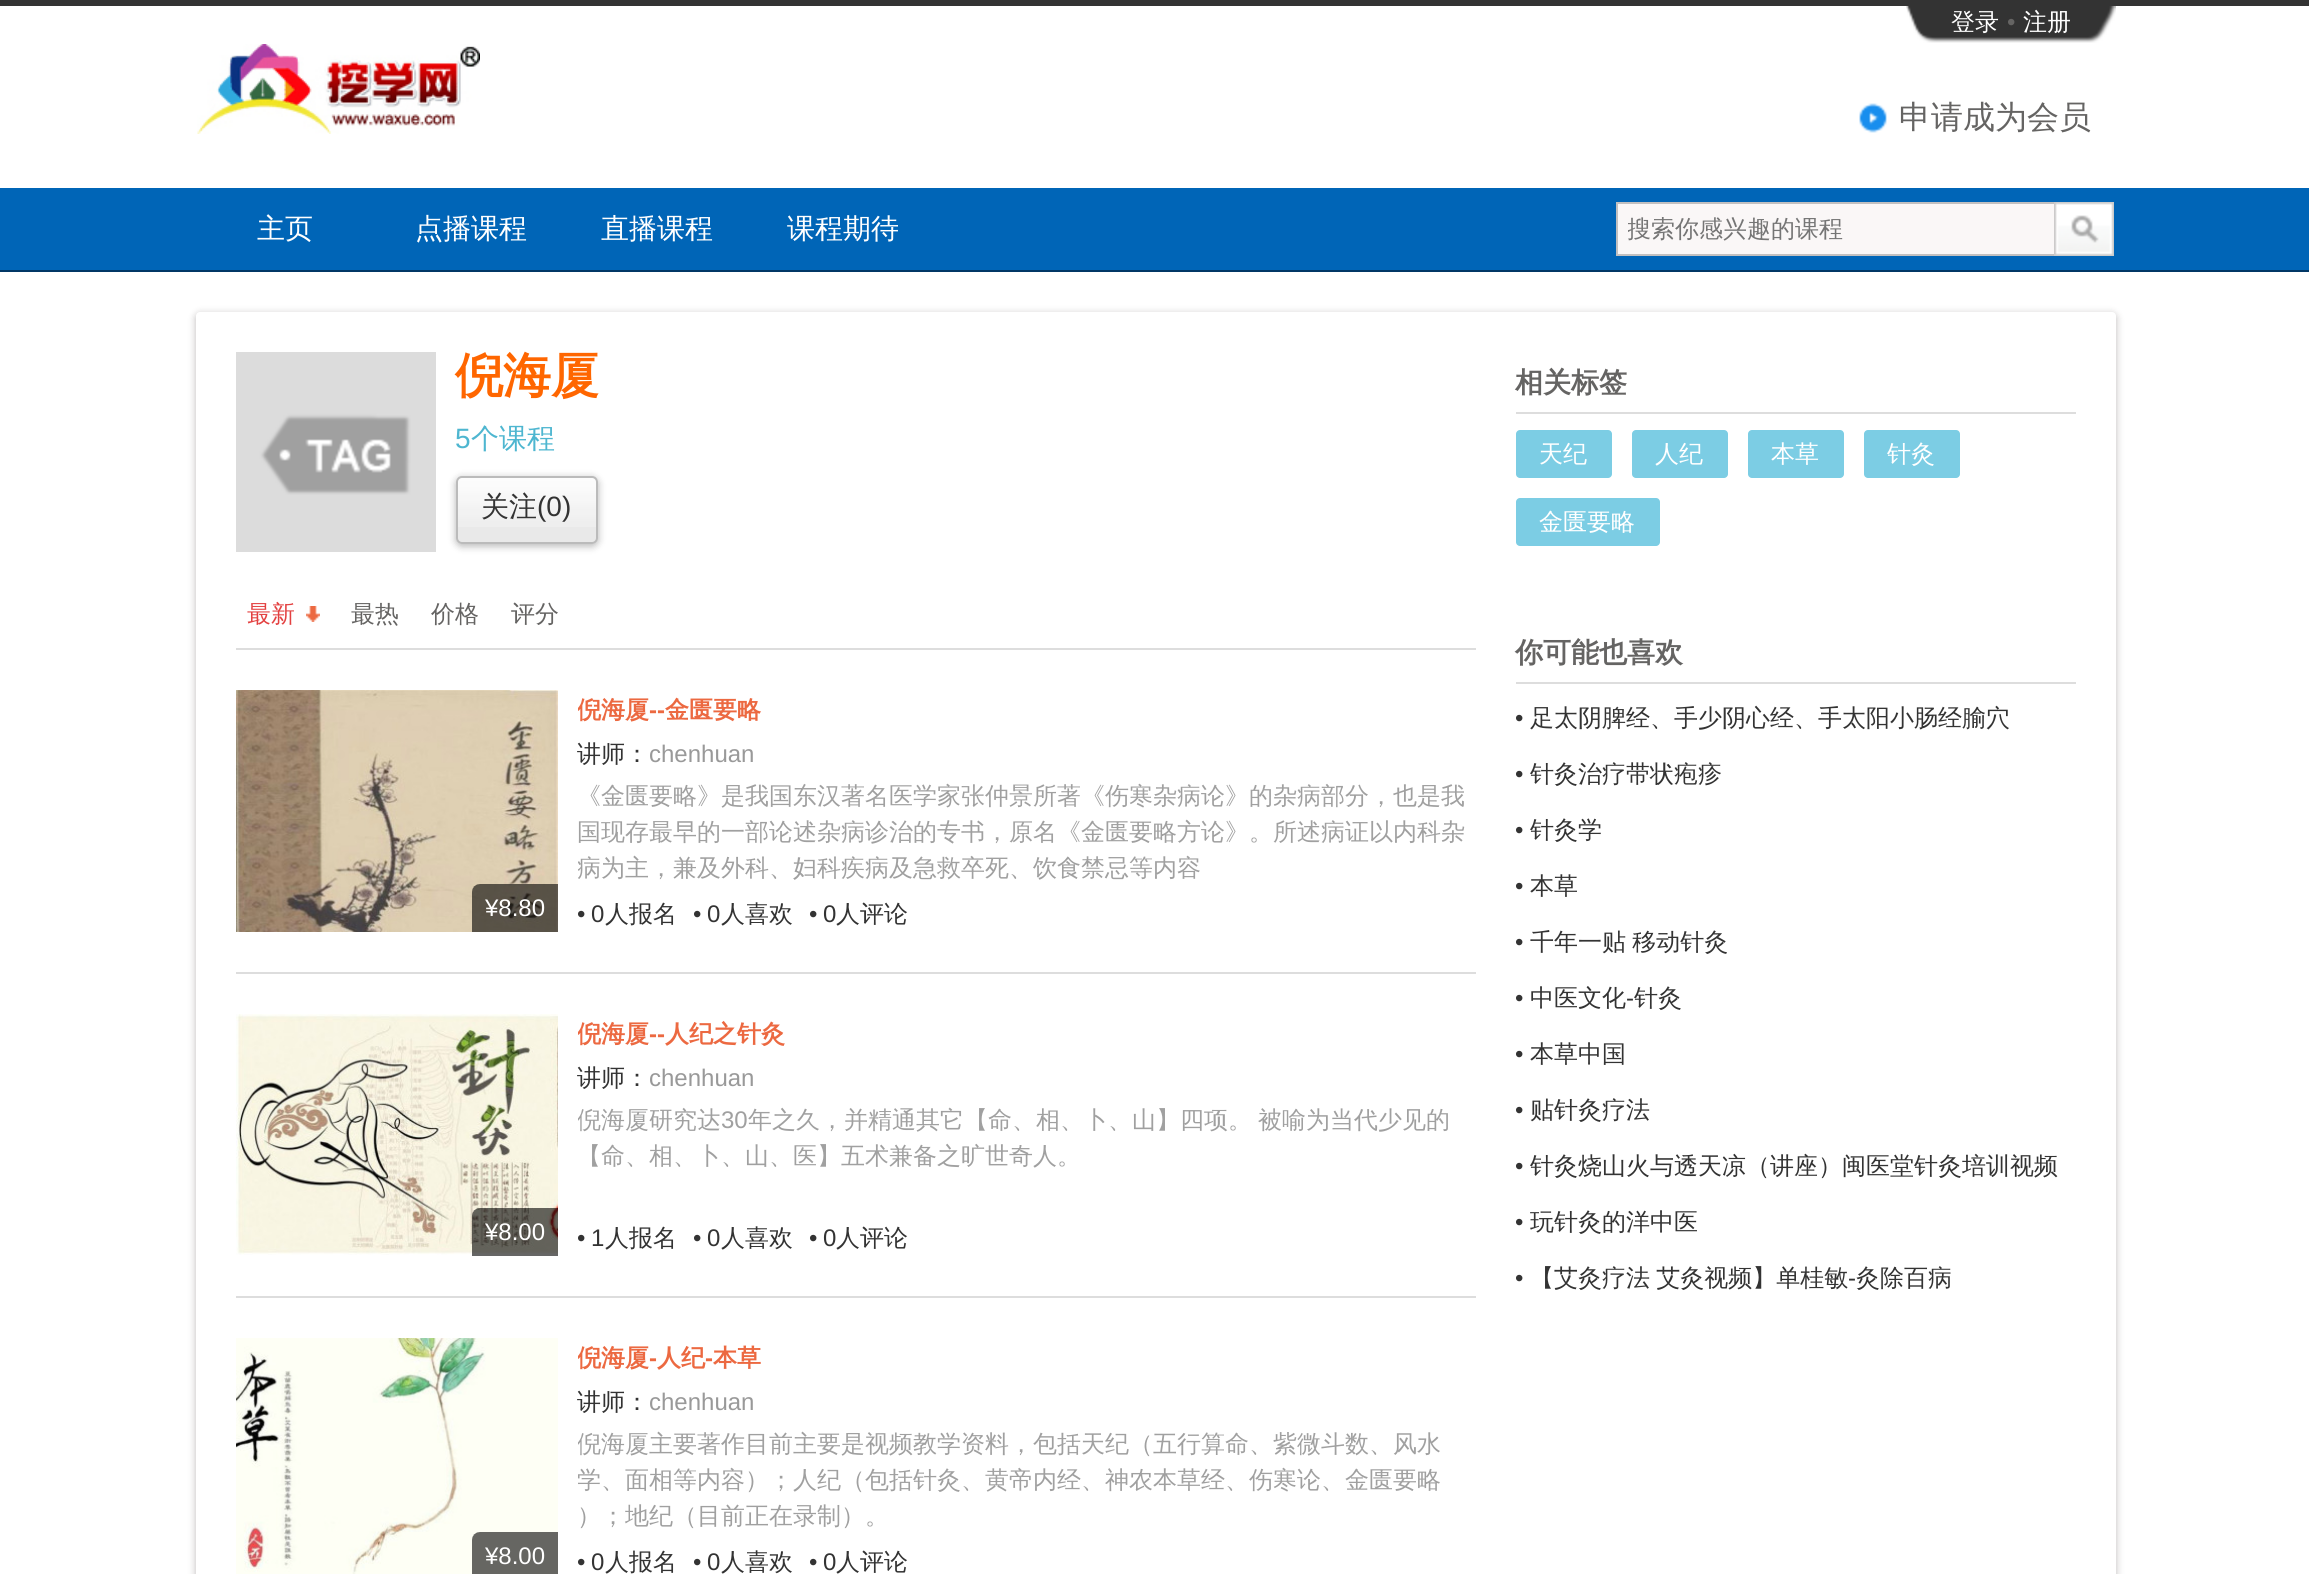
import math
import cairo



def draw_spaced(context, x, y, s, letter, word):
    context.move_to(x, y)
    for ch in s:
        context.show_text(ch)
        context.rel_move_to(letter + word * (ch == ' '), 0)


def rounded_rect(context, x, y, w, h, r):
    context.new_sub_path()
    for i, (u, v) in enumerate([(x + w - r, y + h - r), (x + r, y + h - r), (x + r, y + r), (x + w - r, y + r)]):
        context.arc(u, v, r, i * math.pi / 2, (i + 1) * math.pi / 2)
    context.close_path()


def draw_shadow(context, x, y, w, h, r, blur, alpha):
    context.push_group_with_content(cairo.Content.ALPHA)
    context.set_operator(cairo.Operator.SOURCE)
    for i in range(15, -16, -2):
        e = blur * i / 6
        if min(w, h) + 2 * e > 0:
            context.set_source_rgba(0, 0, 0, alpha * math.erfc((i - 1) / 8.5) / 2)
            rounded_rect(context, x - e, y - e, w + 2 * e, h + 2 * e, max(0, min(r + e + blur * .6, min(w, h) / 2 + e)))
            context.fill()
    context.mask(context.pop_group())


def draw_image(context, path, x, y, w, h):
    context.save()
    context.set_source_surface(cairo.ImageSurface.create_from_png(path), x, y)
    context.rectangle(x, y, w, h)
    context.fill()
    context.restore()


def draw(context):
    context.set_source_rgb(1, 1, 1)
    context.paint()
    context.set_source_rgb(51 / 255, 51 / 255, 51 / 255)
    context.rectangle(0, 0, 2309, 6)
    context.fill()
    context.set_source_rgb(1 / 255, 55 / 255, 101 / 255)
    context.rectangle(0, 270, 2309, 2)
    context.fill()
    draw_image(context, "images/1.png", 1906, 6, 40, 37)
    draw_image(context, "images/2.png", 1946, 6, 56, 37)
    draw_image(context, "images/3.png", 2002, 6, 18, 37)
    draw_image(context, "images/2.png", 2020, 6, 56, 37)
    draw_image(context, "images/4.png", 2076, 6, 40, 37)
    draw_image(context, "images/5.png", 197, 44, 283, 90)
    draw_image(context, "images/6.png", 1859, 103, 28, 30)
    context.set_source_rgb(0, 101 / 255, 183 / 255)
    context.rectangle(0, 188, 2309, 82)
    context.fill()
    context.set_source_rgb(250 / 255, 247 / 255, 247 / 255)
    context.rectangle(1618, 204, 436, 50)
    context.fill()
    context.set_source_rgb(194 / 255, 192 / 255, 192 / 255)
    context.rectangle(1616, 202, 438, 2)
    context.fill()
    context.rectangle(1616, 254, 438, 2)
    context.fill()
    context.rectangle(1616, 202, 2, 54)
    context.fill()
    draw_image(context, "images/7.png", 2054, 202, 60, 54)
    context.set_source_rgb(34 / 255, 25 / 255, 25 / 255)
    draw_shadow(context, 196, 314, 1920, 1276, 4, 4, 0.3)
    context.set_source_rgb(1, 1, 1)
    rounded_rect(context, 196, 312, 1920, 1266, 4)
    context.fill()
    draw_image(context, "images/8.png", 236, 352, 200, 200)
    context.set_source_rgb(0, 0, 0)
    draw_shadow(context, 456, 478, 142, 68, 6, 4, 0.3)
    context.set_source_rgb(233 / 255, 233 / 255, 233 / 255)
    rounded_rect(context, 456, 476, 142, 68, 6)
    context.fill()
    draw_image(context, "images/9.png", 456, 478, 142, 49)
    rounded_rect(context, 457, 477, 140, 66, 5)
    context.set_source_rgb(187 / 255, 187 / 255, 187 / 255)
    context.stroke()
    context.set_source_rgb(221 / 255, 221 / 255, 221 / 255)
    context.rectangle(236, 648, 1240, 2)
    context.fill()
    draw_image(context, "images/10.png", 306, 606, 14, 16)
    context.rectangle(236, 972, 1240, 2)
    context.fill()
    draw_image(context, "images/11.png", 236, 690, 322, 242)
    draw_image(context, "images/12.png", 472, 884, 86, 48)
    context.rectangle(236, 1296, 1240, 2)
    context.fill()
    draw_image(context, "images/13.png", 236, 1014, 322, 241)
    draw_image(context, "images/14.png", 472, 1208, 86, 48)
    draw_image(context, "images/15.png", 236, 1338, 322, 236)
    draw_image(context, "images/16.png", 472, 1532, 86, 42)
    context.rectangle(1516, 412, 560, 2)
    context.fill()
    context.set_source_rgb(124 / 255, 205 / 255, 228 / 255)
    rounded_rect(context, 1516, 430, 96, 48, 4)
    context.fill()
    rounded_rect(context, 1632, 430, 96, 48, 4)
    context.fill()
    rounded_rect(context, 1748, 430, 96, 48, 4)
    context.fill()
    rounded_rect(context, 1864, 430, 96, 48, 4)
    context.fill()
    rounded_rect(context, 1516, 498, 144, 48, 4)
    context.fill()
    context.set_source_rgb(221 / 255, 221 / 255, 221 / 255)
    context.rectangle(1516, 682, 560, 2)
    context.fill()
    context.select_font_face("WenQuanYi Zen Hei Medium")
    context.set_font_size(24)
    context.set_source_rgb(1, 1, 1)
    context.move_to(1951, 30)
    context.show_text("登录")
    context.select_font_face("Liberation Sans")
    context.set_source_rgb(101 / 255, 100 / 255, 99 / 255)
    context.move_to(2007, 30)
    context.show_text("•")
    context.select_font_face("WenQuanYi Zen Hei Medium")
    context.set_source_rgb(1, 1, 1)
    context.move_to(2023, 30)
    context.show_text("注册")
    context.set_font_size(32)
    context.set_source_rgb(101 / 255, 100 / 255, 99 / 255)
    context.move_to(1899, 128)
    context.show_text("申请成为会员")
    context.set_font_size(28)
    context.set_source_rgb(1, 1, 1)
    context.move_to(257, 238)
    context.show_text("主页")
    context.move_to(415, 238)
    context.show_text("点播课程")
    context.move_to(601, 238)
    context.show_text("直播课程")
    context.move_to(787, 238)
    context.show_text("课程期待")
    context.save()
    context.rectangle(1628, 214, 416, 34)
    context.clip()
    context.set_font_size(24)
    context.set_source_rgb(117 / 255, 117 / 255, 117 / 255)
    context.move_to(1627, 237)
    context.show_text("搜索你感兴趣的课程")
    context.restore()
    context.select_font_face("WenQuanYi Zen Hei", cairo.FontSlant.NORMAL, cairo.FontWeight.BOLD)
    context.set_font_size(48)
    context.set_source_rgb(1, 102 / 255, 0)
    context.move_to(455, 392)
    context.show_text("倪海厦")
    context.select_font_face("Liberation Sans")
    context.set_font_size(28)
    context.set_source_rgb(78 / 255, 182 / 255, 208 / 255)
    context.move_to(455, 448)
    context.show_text("5")
    context.select_font_face("WenQuanYi Zen Hei Medium")
    context.move_to(471, 448)
    context.show_text("个课程")
    context.set_source_rgb(51 / 255, 51 / 255, 51 / 255)
    context.move_to(481, 516)
    context.show_text("关注")
    context.select_font_face("Liberation Sans")
    context.move_to(537, 516)
    context.show_text("(0)")
    context.select_font_face("WenQuanYi Zen Hei Medium")
    context.set_font_size(24)
    context.set_source_rgb(227 / 255, 65 / 255, 65 / 255)
    context.move_to(247, 622)
    context.show_text("最新")
    context.set_source_rgb(101 / 255, 100 / 255, 99 / 255)
    context.move_to(351, 622)
    context.show_text("最热")
    context.move_to(431, 622)
    context.show_text("价格")
    context.move_to(511, 622)
    context.show_text("评分")
    context.select_font_face("Liberation Sans")
    context.set_source_rgb(1, 1, 1)
    context.move_to(485, 916)
    context.show_text("¥8.80")
    context.save()
    context.rectangle(578, 690, 898, 40)
    context.clip()
    context.select_font_face("WenQuanYi Zen Hei", cairo.FontSlant.NORMAL, cairo.FontWeight.BOLD)
    context.set_source_rgb(236 / 255, 105 / 255, 65 / 255)
    context.move_to(577, 718)
    context.show_text("倪海厦")
    context.restore()
    context.select_font_face("Liberation Sans", cairo.FontSlant.NORMAL, cairo.FontWeight.BOLD)
    context.set_source_rgb(236 / 255, 105 / 255, 65 / 255)
    context.move_to(649, 718)
    context.show_text("--")
    context.select_font_face("WenQuanYi Zen Hei", cairo.FontSlant.NORMAL, cairo.FontWeight.BOLD)
    context.move_to(665, 718)
    context.show_text("金匮要略")
    context.select_font_face("WenQuanYi Zen Hei Medium")
    context.set_source_rgb(51 / 255, 51 / 255, 51 / 255)
    context.move_to(577, 762)
    context.show_text("讲师：")
    context.select_font_face("Liberation Sans")
    context.set_source_rgb(153 / 255, 153 / 255, 153 / 255)
    context.move_to(649, 762)
    context.show_text("chenhuan")
    context.select_font_face("WenQuanYi Zen Hei Medium")
    context.set_source_rgb(160 / 255, 160 / 255, 160 / 255)
    context.move_to(577, 804)
    context.show_text("《金匮要略》是我国东汉著名医学家张仲景所著《伤寒杂病论》的杂病部分，也是我")
    context.move_to(577, 840)
    context.show_text("国现存最早的一部论述杂病诊治的专书，原名《金匮要略方论》。所述病证以内科杂")
    context.save()
    context.rectangle(578, 778, 898, 108)
    context.clip()
    context.move_to(577, 876)
    context.show_text("病为主，兼及外科、妇科疾病及急救卒死、饮食禁忌等内容")
    context.restore()
    context.select_font_face("Liberation Sans")
    context.set_source_rgb(51 / 255, 51 / 255, 51 / 255)
    context.move_to(577, 922)
    context.show_text("•")
    context.move_to(591, 922)
    context.show_text("0")
    context.select_font_face("WenQuanYi Zen Hei Medium")
    context.move_to(605, 922)
    context.show_text("人报名")
    context.select_font_face("Liberation Sans")
    context.move_to(693, 922)
    context.show_text("•")
    context.move_to(707, 922)
    context.show_text("0")
    context.select_font_face("WenQuanYi Zen Hei Medium")
    context.move_to(721, 922)
    context.show_text("人喜欢")
    context.select_font_face("Liberation Sans")
    context.move_to(809, 922)
    context.show_text("•")
    context.move_to(823, 922)
    context.show_text("0")
    context.select_font_face("WenQuanYi Zen Hei Medium")
    context.move_to(836, 922)
    context.show_text("人评论")
    context.select_font_face("Liberation Sans")
    context.set_source_rgb(1, 1, 1)
    context.move_to(485, 1240)
    context.show_text("¥8.00")
    context.save()
    context.rectangle(578, 1014, 898, 40)
    context.clip()
    context.select_font_face("WenQuanYi Zen Hei", cairo.FontSlant.NORMAL, cairo.FontWeight.BOLD)
    context.set_source_rgb(236 / 255, 105 / 255, 65 / 255)
    context.move_to(577, 1042)
    context.show_text("倪海厦")
    context.restore()
    context.select_font_face("Liberation Sans", cairo.FontSlant.NORMAL, cairo.FontWeight.BOLD)
    context.set_source_rgb(236 / 255, 105 / 255, 65 / 255)
    context.move_to(649, 1042)
    context.show_text("--")
    context.select_font_face("WenQuanYi Zen Hei", cairo.FontSlant.NORMAL, cairo.FontWeight.BOLD)
    context.move_to(665, 1042)
    context.show_text("人纪之针灸")
    context.select_font_face("WenQuanYi Zen Hei Medium")
    context.set_source_rgb(51 / 255, 51 / 255, 51 / 255)
    context.move_to(577, 1086)
    context.show_text("讲师：")
    context.select_font_face("Liberation Sans")
    context.set_source_rgb(153 / 255, 153 / 255, 153 / 255)
    context.move_to(649, 1086)
    context.show_text("chenhuan")
    context.save()
    context.rectangle(578, 1102, 898, 108)
    context.clip()
    context.select_font_face("WenQuanYi Zen Hei Medium")
    context.set_source_rgb(160 / 255, 160 / 255, 160 / 255)
    context.move_to(577, 1128)
    context.show_text("倪海厦研究达")
    context.restore()
    context.set_source_rgb(160 / 255, 160 / 255, 160 / 255)
    context.move_to(721, 1128)
    context.show_text("30")
    context.select_font_face("WenQuanYi Zen Hei Medium")
    context.move_to(748, 1128)
    context.show_text("年之久，并精通其它【命、相、卜、山】四项。")
    context.move_to(1258, 1128)
    context.show_text("被喻为当代少见的")
    context.move_to(577, 1164)
    context.show_text("【命、相、卜、山、医】五术兼备之旷世奇人。")
    context.select_font_face("Liberation Sans")
    context.set_source_rgb(51 / 255, 51 / 255, 51 / 255)
    context.move_to(577, 1246)
    context.show_text("•")
    context.move_to(591, 1246)
    context.show_text("1")
    context.select_font_face("WenQuanYi Zen Hei Medium")
    context.move_to(605, 1246)
    context.show_text("人报名")
    context.select_font_face("Liberation Sans")
    context.move_to(693, 1246)
    context.show_text("•")
    context.move_to(707, 1246)
    context.show_text("0")
    context.select_font_face("WenQuanYi Zen Hei Medium")
    context.move_to(721, 1246)
    context.show_text("人喜欢")
    context.select_font_face("Liberation Sans")
    context.move_to(809, 1246)
    context.show_text("•")
    context.move_to(823, 1246)
    context.show_text("0")
    context.select_font_face("WenQuanYi Zen Hei Medium")
    context.move_to(836, 1246)
    context.show_text("人评论")
    context.select_font_face("Liberation Sans")
    context.set_source_rgb(1, 1, 1)
    context.move_to(485, 1564)
    context.show_text("¥8.00")
    context.save()
    context.rectangle(578, 1338, 898, 40)
    context.clip()
    context.select_font_face("WenQuanYi Zen Hei", cairo.FontSlant.NORMAL, cairo.FontWeight.BOLD)
    context.set_source_rgb(236 / 255, 105 / 255, 65 / 255)
    context.move_to(577, 1366)
    context.show_text("倪海厦")
    context.restore()
    context.select_font_face("Liberation Sans", cairo.FontSlant.NORMAL, cairo.FontWeight.BOLD)
    context.set_source_rgb(236 / 255, 105 / 255, 65 / 255)
    context.move_to(649, 1366)
    context.show_text("-")
    context.select_font_face("WenQuanYi Zen Hei", cairo.FontSlant.NORMAL, cairo.FontWeight.BOLD)
    context.move_to(657, 1366)
    context.show_text("人纪")
    context.select_font_face("Liberation Sans", cairo.FontSlant.NORMAL, cairo.FontWeight.BOLD)
    context.move_to(705, 1366)
    context.show_text("-")
    context.select_font_face("WenQuanYi Zen Hei", cairo.FontSlant.NORMAL, cairo.FontWeight.BOLD)
    context.move_to(713, 1366)
    context.show_text("本草")
    context.select_font_face("WenQuanYi Zen Hei Medium")
    context.set_source_rgb(51 / 255, 51 / 255, 51 / 255)
    context.move_to(577, 1410)
    context.show_text("讲师：")
    context.select_font_face("Liberation Sans")
    context.set_source_rgb(153 / 255, 153 / 255, 153 / 255)
    context.move_to(649, 1410)
    context.show_text("chenhuan")
    context.save()
    context.rectangle(578, 1426, 898, 108)
    context.clip()
    context.select_font_face("WenQuanYi Zen Hei Medium")
    context.set_source_rgb(160 / 255, 160 / 255, 160 / 255)
    context.move_to(577, 1452)
    context.show_text("倪海厦主要著作目前主要是视频教学资料，包括天纪（五行算命、紫微斗数、风水")
    context.move_to(577, 1488)
    context.show_text("学、面相等内容）；人纪（包括针灸、黄帝内经、神农本草经、伤寒论、金匮要略")
    context.restore()
    context.select_font_face("WenQuanYi Zen Hei Medium")
    context.set_source_rgb(160 / 255, 160 / 255, 160 / 255)
    context.move_to(577, 1524)
    context.show_text("）；地纪（目前正在录制）。")
    context.select_font_face("Liberation Sans")
    context.set_source_rgb(51 / 255, 51 / 255, 51 / 255)
    context.move_to(577, 1570)
    context.show_text("•")
    context.move_to(591, 1570)
    context.show_text("0")
    context.select_font_face("WenQuanYi Zen Hei Medium")
    context.move_to(605, 1570)
    context.show_text("人报名")
    context.select_font_face("Liberation Sans")
    context.move_to(693, 1570)
    context.show_text("•")
    context.move_to(707, 1570)
    context.show_text("0")
    context.select_font_face("WenQuanYi Zen Hei Medium")
    context.move_to(721, 1570)
    context.show_text("人喜欢")
    context.select_font_face("Liberation Sans")
    context.move_to(809, 1570)
    context.show_text("•")
    context.move_to(823, 1570)
    context.show_text("0")
    context.select_font_face("WenQuanYi Zen Hei Medium")
    context.move_to(836, 1570)
    context.show_text("人评论")
    context.select_font_face("WenQuanYi Zen Hei", cairo.FontSlant.NORMAL, cairo.FontWeight.BOLD)
    context.set_font_size(28)
    context.set_source_rgb(101 / 255, 100 / 255, 99 / 255)
    context.move_to(1515, 392)
    context.show_text("相关标签")
    context.select_font_face("WenQuanYi Zen Hei Medium")
    context.set_font_size(24)
    context.set_source_rgb(1, 1, 1)
    context.move_to(1539, 462)
    context.show_text("天纪")
    context.move_to(1655, 462)
    context.show_text("人纪")
    context.move_to(1771, 462)
    context.show_text("本草")
    context.move_to(1887, 462)
    context.show_text("针灸")
    context.move_to(1539, 530)
    context.show_text("金匮要略")
    context.select_font_face("WenQuanYi Zen Hei", cairo.FontSlant.NORMAL, cairo.FontWeight.BOLD)
    context.set_font_size(28)
    context.set_source_rgb(101 / 255, 100 / 255, 99 / 255)
    context.move_to(1515, 662)
    context.show_text("你可能也喜欢")
    context.select_font_face("Liberation Sans")
    context.set_font_size(24)
    context.set_source_rgb(51 / 255, 51 / 255, 51 / 255)
    context.move_to(1515, 726)
    context.show_text("•")
    context.select_font_face("WenQuanYi Zen Hei Medium")
    context.move_to(1530, 726)
    context.show_text("足太阴脾经、手少阴心经、手太阳小肠经腧穴")
    context.select_font_face("Liberation Sans")
    context.move_to(1515, 782)
    context.show_text("•")
    context.select_font_face("WenQuanYi Zen Hei Medium")
    context.move_to(1530, 782)
    context.show_text("针灸治疗带状疱疹")
    context.select_font_face("Liberation Sans")
    context.move_to(1515, 838)
    context.show_text("•")
    context.select_font_face("WenQuanYi Zen Hei Medium")
    context.move_to(1530, 838)
    context.show_text("针灸学")
    context.select_font_face("Liberation Sans")
    context.move_to(1515, 894)
    context.show_text("•")
    context.select_font_face("WenQuanYi Zen Hei Medium")
    context.move_to(1530, 894)
    context.show_text("本草")
    context.select_font_face("Liberation Sans")
    context.move_to(1515, 950)
    context.show_text("•")
    context.select_font_face("WenQuanYi Zen Hei Medium")
    draw_spaced(context, 1530, 950, "千年一贴 移动针灸", 0, -1)
    context.select_font_face("Liberation Sans")
    context.move_to(1515, 1006)
    context.show_text("•")
    context.select_font_face("WenQuanYi Zen Hei Medium")
    context.move_to(1530, 1006)
    context.show_text("中医文化")
    context.select_font_face("Liberation Sans")
    context.move_to(1626, 1006)
    context.show_text("-")
    context.select_font_face("WenQuanYi Zen Hei Medium")
    context.move_to(1634, 1006)
    context.show_text("针灸")
    context.select_font_face("Liberation Sans")
    context.move_to(1515, 1062)
    context.show_text("•")
    context.select_font_face("WenQuanYi Zen Hei Medium")
    context.move_to(1530, 1062)
    context.show_text("本草中国")
    context.select_font_face("Liberation Sans")
    context.move_to(1515, 1118)
    context.show_text("•")
    context.select_font_face("WenQuanYi Zen Hei Medium")
    context.move_to(1530, 1118)
    context.show_text("贴针灸疗法")
    context.select_font_face("Liberation Sans")
    context.move_to(1515, 1174)
    context.show_text("•")
    context.select_font_face("WenQuanYi Zen Hei Medium")
    context.move_to(1530, 1174)
    context.show_text("针灸烧山火与透天凉（讲座）闽医堂针灸培训视频")
    context.select_font_face("Liberation Sans")
    context.move_to(1515, 1230)
    context.show_text("•")
    context.select_font_face("WenQuanYi Zen Hei Medium")
    context.move_to(1530, 1230)
    context.show_text("玩针灸的洋中医")
    context.select_font_face("Liberation Sans")
    context.move_to(1515, 1286)
    context.show_text("•")
    context.select_font_face("WenQuanYi Zen Hei Medium")
    draw_spaced(context, 1530, 1286, "【艾灸疗法 艾灸视频】单桂敏", 0, -1)
    context.select_font_face("Liberation Sans")
    context.move_to(1848, 1286)
    context.show_text("-")
    context.select_font_face("WenQuanYi Zen Hei Medium")
    context.move_to(1856, 1286)
    context.show_text("灸除百病")


surface = cairo.ImageSurface(cairo.Format.RGB24, 2309, 1574)
context = cairo.Context(surface)
options = cairo.FontOptions()
options.set_hint_metrics(cairo.HintMetrics.OFF)
options.set_hint_style(cairo.HintStyle.NONE)
context.set_font_options(options)
context.set_miter_limit(4)
draw(context)
surface.write_to_png("out.png")
